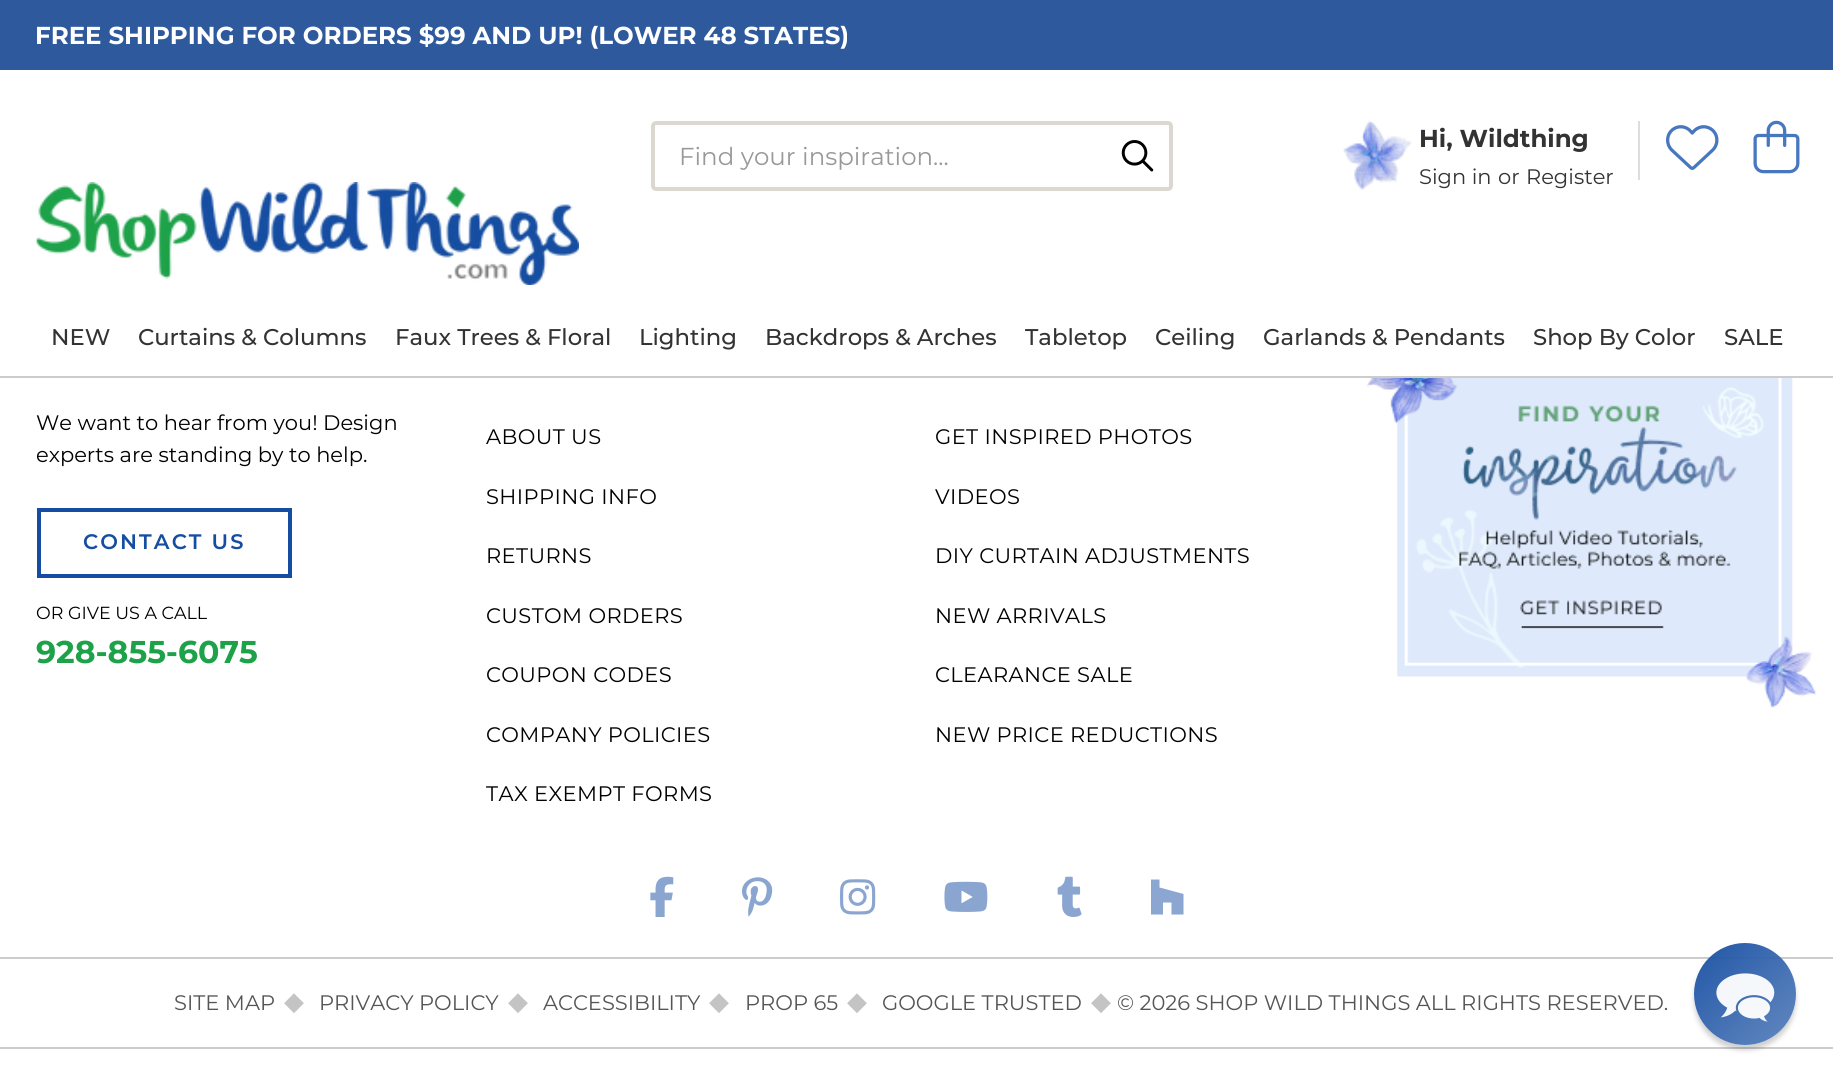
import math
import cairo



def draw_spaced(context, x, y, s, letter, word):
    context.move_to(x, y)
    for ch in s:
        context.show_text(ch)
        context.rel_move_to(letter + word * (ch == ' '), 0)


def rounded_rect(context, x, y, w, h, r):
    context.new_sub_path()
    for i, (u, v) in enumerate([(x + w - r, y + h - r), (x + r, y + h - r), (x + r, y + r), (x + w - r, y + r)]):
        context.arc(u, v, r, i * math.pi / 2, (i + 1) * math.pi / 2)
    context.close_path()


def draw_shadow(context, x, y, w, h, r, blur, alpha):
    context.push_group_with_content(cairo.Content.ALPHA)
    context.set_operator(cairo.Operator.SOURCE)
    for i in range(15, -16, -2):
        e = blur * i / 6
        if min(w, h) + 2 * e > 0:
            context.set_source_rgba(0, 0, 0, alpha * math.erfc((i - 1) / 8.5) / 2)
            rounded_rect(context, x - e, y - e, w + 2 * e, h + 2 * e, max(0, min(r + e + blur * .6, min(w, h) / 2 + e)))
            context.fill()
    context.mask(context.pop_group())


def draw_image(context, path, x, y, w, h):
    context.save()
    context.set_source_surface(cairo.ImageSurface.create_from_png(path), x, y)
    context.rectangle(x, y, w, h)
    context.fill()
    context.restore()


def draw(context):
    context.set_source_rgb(1, 1, 1)
    context.paint()
    context.set_source_rgb(204 / 255, 204 / 255, 204 / 255)
    context.rectangle(0, 376, 1833, 2)
    context.fill()
    context.set_source_rgb(46 / 255, 90 / 255, 157 / 255)
    context.rectangle(0, 0, 1833, 70)
    context.fill()
    rounded_rect(context, 653, 123, 518, 66, 3)
    context.set_source_rgb(220 / 255, 215 / 255, 209 / 255)
    context.set_line_width(4)
    context.stroke()
    draw_image(context, "images/1.png", 1121, 140, 33, 32)
    draw_image(context, "images/2.png", 1343, 120, 69, 70)
    context.set_source_rgb(221 / 255, 221 / 255, 221 / 255)
    context.rectangle(1638, 121, 2, 59)
    context.fill()
    draw_image(context, "images/3.png", 1666, 125, 53, 45)
    draw_image(context, "images/4.png", 1753, 120, 47, 54)
    draw_image(context, "images/5.png", 36, 182, 543, 103)
    context.rectangle(39, 510, 251, 66)
    context.set_source_rgb(21 / 255, 77 / 255, 162 / 255)
    context.stroke()
    draw_image(context, "images/6.png", 1366, 378, 451, 330)
    draw_image(context, "images/7.png", 650, 876, 24, 41)
    draw_image(context, "images/8.png", 742, 877, 31, 40)
    draw_image(context, "images/9.png", 840, 879, 36, 36)
    draw_image(context, "images/10.png", 944, 881, 44, 31)
    draw_image(context, "images/11.png", 1057, 876, 25, 41)
    context.set_source_rgb(138 / 255, 166 / 255, 209 / 255)
    context.new_path()
    context.move_to(1171.5, 902.5)
    context.line_to(1163, 902.5)
    context.line_to(1163, 914.5)
    context.line_to(1151, 914.5)
    context.line_to(1151, 879.5)
    context.line_to(1159.5, 879.5)
    context.line_to(1159.5, 887.5)
    context.line_to(1183.5, 894)
    context.line_to(1183.5, 914.5)
    context.line_to(1171.5, 914.5)
    context.close_path()
    context.fill()
    context.set_source_rgb(204 / 255, 204 / 255, 204 / 255)
    context.rectangle(0, 957, 1833, 2)
    context.fill()
    context.rectangle(0, 1047, 1833, 2)
    context.fill()
    context.save()
    context.set_fill_rule(cairo.FillRule.EVEN_ODD)
    context.new_path()
    context.move_to(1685, 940)
    context.line_to(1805, 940)
    context.line_to(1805, 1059)
    context.line_to(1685, 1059)
    context.close_path()
    context.move_to(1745, 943)
    context.curve_to(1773, 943, 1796, 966, 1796, 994)
    context.curve_to(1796, 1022, 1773, 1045, 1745, 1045)
    context.curve_to(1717, 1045, 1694, 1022, 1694, 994)
    context.curve_to(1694, 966, 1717, 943, 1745, 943)
    context.close_path()
    context.clip()
    context.set_source_rgb(0, 0, 0)
    draw_shadow(context, 1694, 949, 102, 101, 50.5, 2.5, 0.19)
    context.restore()
    gradient = cairo.LinearGradient(1694, 943, 1796, 1045)
    gradient.add_color_stop_rgba(0, 21 / 255, 77 / 255, 161 / 255, 0.95)
    gradient.add_color_stop_rgba(1, 91 / 255, 130 / 255, 189 / 255, 0.95)
    context.set_source(gradient)
    context.arc(1745, 994, 51, 0, 2 * math.pi)
    context.fill()
    draw_image(context, "images/12.png", 1716, 973, 59, 49)
    context.select_font_face("Montserrat", cairo.FontSlant.NORMAL, cairo.FontWeight.BOLD)
    context.set_font_size(24.5)
    context.set_source_rgb(1, 1, 1)
    context.move_to(35, 44)
    context.show_text("FREE SHIPPING FOR ORDERS $99 AND UP! (LOWER 48 STATES)")
    context.select_font_face("Montserrat Thin")
    context.set_source_rgb(153 / 255, 153 / 255, 153 / 255)
    context.move_to(679, 165)
    context.show_text("Find your inspiration...")
    context.select_font_face("Montserrat", cairo.FontSlant.NORMAL, cairo.FontWeight.BOLD)
    context.set_source_rgb(51 / 255, 51 / 255, 51 / 255)
    context.move_to(1419, 147)
    context.show_text("Hi, Wildthing")
    context.select_font_face("Montserrat Thin")
    context.set_font_size(21)
    context.move_to(1419, 184)
    context.show_text("Sign in")
    context.move_to(1498, 184)
    context.show_text("or")
    context.move_to(1526, 184)
    context.show_text("Register")
    context.select_font_face("Montserrat Medium")
    context.set_font_size(22.75)
    context.move_to(51, 345)
    context.show_text("NEW")
    context.move_to(138, 345)
    context.show_text("Curtains & Columns")
    context.move_to(395, 345)
    context.show_text("Faux Trees & Floral")
    context.move_to(639, 345)
    context.show_text("Lighting")
    context.move_to(765, 345)
    context.show_text("Backdrops & Arches")
    context.move_to(1025, 345)
    context.show_text("Tabletop")
    context.move_to(1155, 345)
    context.show_text("Ceiling")
    context.move_to(1263, 345)
    context.show_text("Garlands & Pendants")
    context.move_to(1533, 345)
    context.show_text("Shop By Color")
    context.move_to(1724, 345)
    context.show_text("SALE")
    context.select_font_face("Montserrat Thin")
    context.set_font_size(21)
    context.set_source_rgb(0, 0, 0)
    context.move_to(36, 430)
    context.show_text("We want to hear from you! Design")
    context.move_to(36, 462)
    context.show_text("experts are standing by to help.")
    context.select_font_face("Montserrat SemiBold")
    context.set_source_rgb(21 / 255, 77 / 255, 162 / 255)
    draw_spaced(context, 83, 549, "CONTACT US", 2.1, 0)
    context.select_font_face("Montserrat Thin")
    context.set_font_size(17.5)
    context.set_source_rgb(0, 0, 0)
    context.move_to(36, 619)
    context.show_text("OR GIVE US A CALL")
    context.select_font_face("Montserrat", cairo.FontSlant.NORMAL, cairo.FontWeight.BOLD)
    context.set_font_size(31.5)
    context.set_source_rgb(29 / 255, 161 / 255, 73 / 255)
    context.move_to(36, 663)
    context.show_text("928-855-6075")
    context.select_font_face("Montserrat Thin")
    context.set_font_size(21)
    context.set_source_rgb(0, 0, 0)
    draw_spaced(context, 486, 444, "ABOUT US", 0.4, 0)
    draw_spaced(context, 486, 504, "SHIPPING INFO", 0.4, 0)
    draw_spaced(context, 486, 563, "RETURNS", 0.4, 0)
    draw_spaced(context, 486, 623, "CUSTOM ORDERS", 0.4, 0)
    draw_spaced(context, 486, 682, "COUPON CODES", 0.4, 0)
    draw_spaced(context, 486, 742, "COMPANY POLICIES", 0.4, 0)
    draw_spaced(context, 486, 801, "TAX EXEMPT FORMS", 0.4, 0)
    draw_spaced(context, 935, 444, "GET INSPIRED PHOTOS", 0.4, 0)
    draw_spaced(context, 935, 504, "VIDEOS", 0.4, 0)
    draw_spaced(context, 935, 563, "DIY CURTAIN ADJUSTMENTS", 0.4, 0)
    draw_spaced(context, 935, 623, "NEW ARRIVALS", 0.4, 0)
    draw_spaced(context, 935, 682, "CLEARANCE SALE", 0.4, 0)
    draw_spaced(context, 935, 742, "NEW PRICE REDUCTIONS", 0.4, 0)
    context.set_source_rgb(85 / 255, 85 / 255, 85 / 255)
    context.move_to(174, 1010)
    context.show_text("SITE MAP")
    context.select_font_face("DejaVu Sans")
    context.set_font_size(26)
    context.set_source_rgb(196 / 255, 196 / 255, 196 / 255)
    context.move_to(284, 1010)
    context.show_text("◆")
    context.select_font_face("Montserrat Thin")
    context.set_font_size(21)
    context.set_source_rgb(85 / 255, 85 / 255, 85 / 255)
    context.move_to(319, 1010)
    context.show_text("PRIVACY POLICY")
    context.select_font_face("DejaVu Sans")
    context.set_font_size(26)
    context.set_source_rgb(196 / 255, 196 / 255, 196 / 255)
    context.move_to(508, 1010)
    context.show_text("◆")
    context.select_font_face("Montserrat Thin")
    context.set_font_size(21)
    context.set_source_rgb(85 / 255, 85 / 255, 85 / 255)
    context.move_to(543, 1010)
    context.show_text("ACCESSIBILITY")
    context.select_font_face("DejaVu Sans")
    context.set_font_size(26)
    context.set_source_rgb(196 / 255, 196 / 255, 196 / 255)
    context.move_to(709, 1010)
    context.show_text("◆")
    context.select_font_face("Montserrat Thin")
    context.set_font_size(21)
    context.set_source_rgb(85 / 255, 85 / 255, 85 / 255)
    context.move_to(745, 1010)
    context.show_text("PROP 65")
    context.select_font_face("DejaVu Sans")
    context.set_font_size(26)
    context.set_source_rgb(196 / 255, 196 / 255, 196 / 255)
    context.move_to(847, 1010)
    context.show_text("◆")
    context.select_font_face("Montserrat Thin")
    context.set_font_size(21)
    context.set_source_rgb(85 / 255, 85 / 255, 85 / 255)
    context.move_to(882, 1010)
    context.show_text("GOOGLE TRUSTED")
    context.select_font_face("DejaVu Sans")
    context.set_font_size(26)
    context.set_source_rgb(196 / 255, 196 / 255, 196 / 255)
    context.move_to(1091, 1010)
    context.show_text("◆")
    context.select_font_face("Montserrat Thin")
    context.set_font_size(21)
    context.set_source_rgb(85 / 255, 85 / 255, 85 / 255)
    context.move_to(1117, 1010)
    context.show_text("© 2026 SHOP WILD THINGS ALL RIGHTS RESERVED.")


surface = cairo.ImageSurface(cairo.Format.RGB24, 1833, 1083)
context = cairo.Context(surface)
options = cairo.FontOptions()
options.set_hint_metrics(cairo.HintMetrics.OFF)
options.set_hint_style(cairo.HintStyle.NONE)
context.set_font_options(options)
context.set_miter_limit(4)
draw(context)
surface.write_to_png("out.png")
